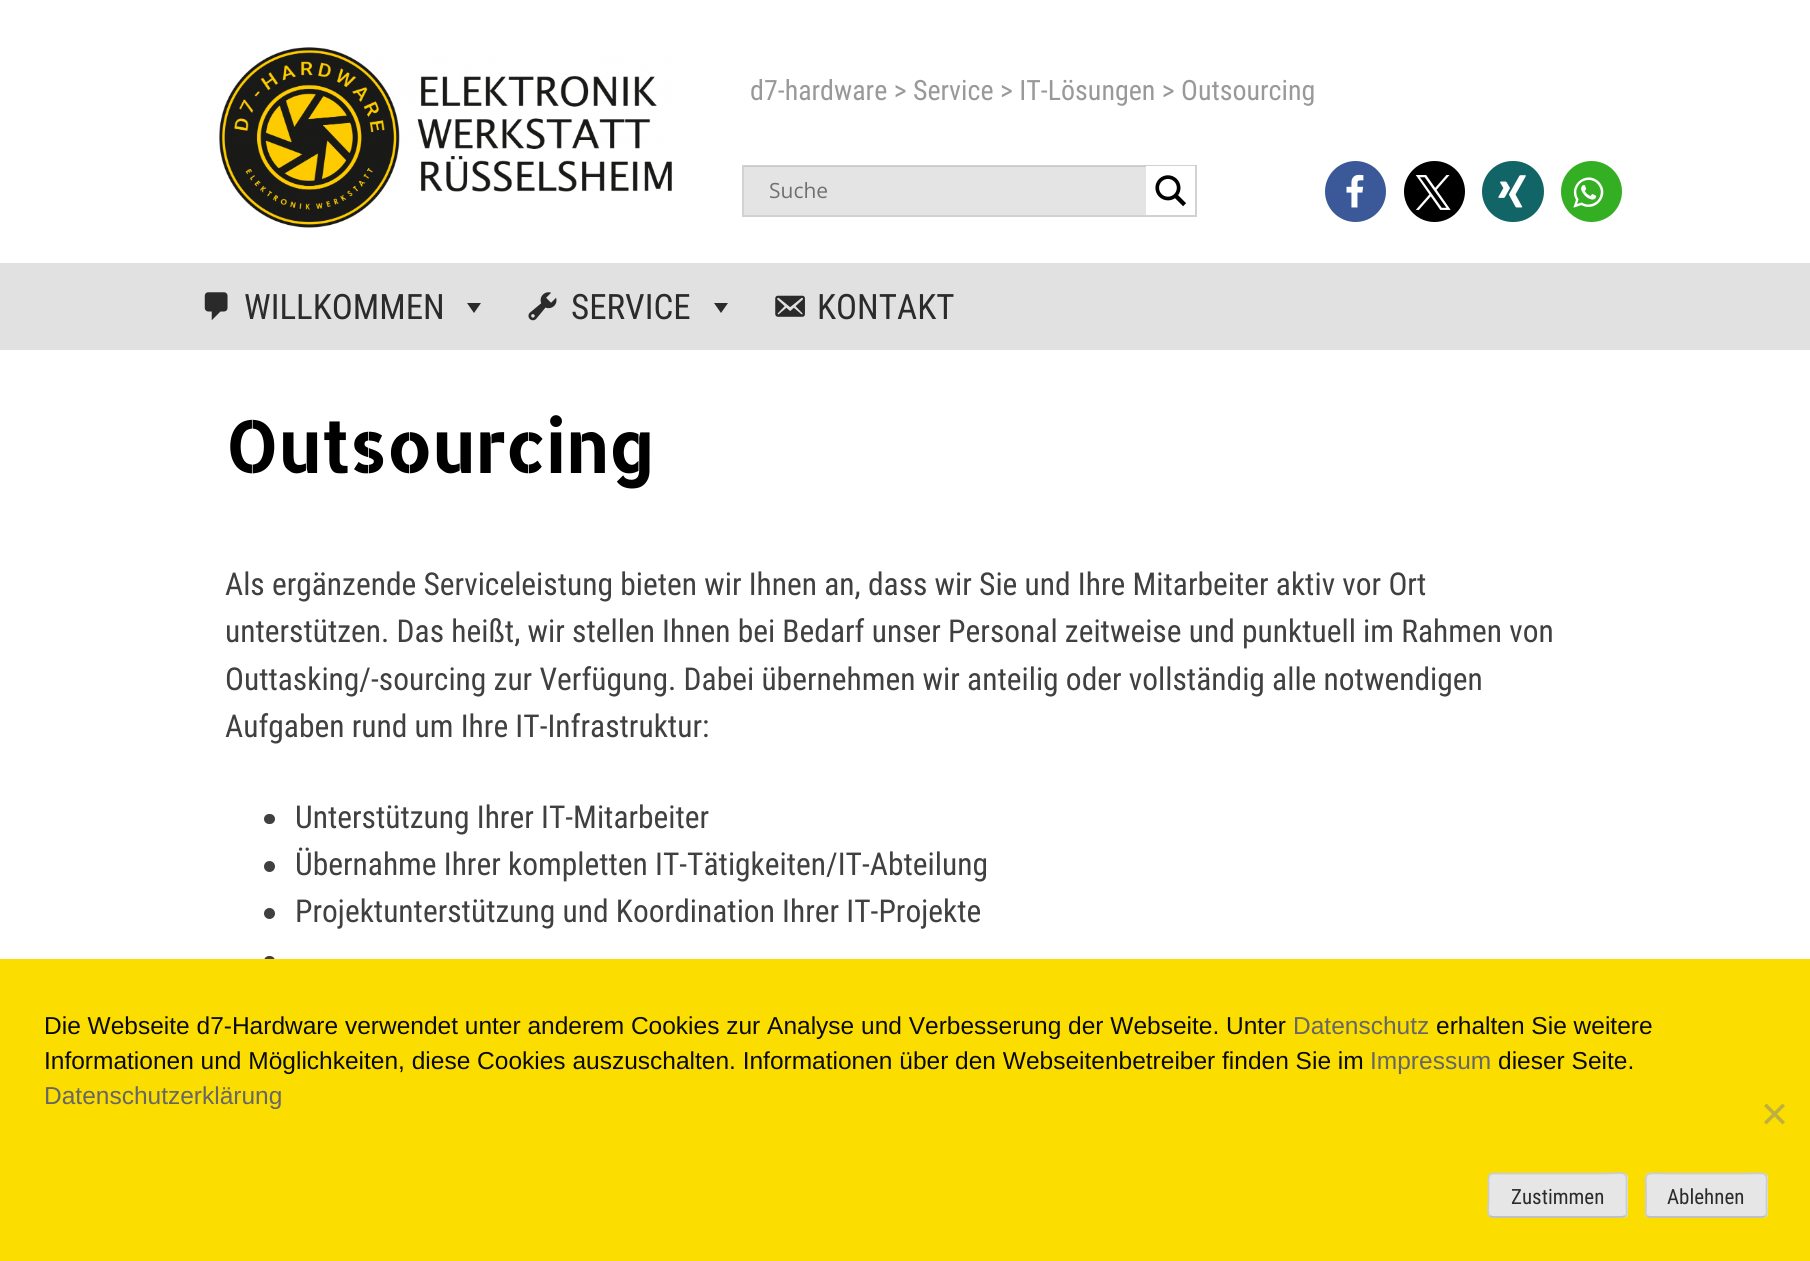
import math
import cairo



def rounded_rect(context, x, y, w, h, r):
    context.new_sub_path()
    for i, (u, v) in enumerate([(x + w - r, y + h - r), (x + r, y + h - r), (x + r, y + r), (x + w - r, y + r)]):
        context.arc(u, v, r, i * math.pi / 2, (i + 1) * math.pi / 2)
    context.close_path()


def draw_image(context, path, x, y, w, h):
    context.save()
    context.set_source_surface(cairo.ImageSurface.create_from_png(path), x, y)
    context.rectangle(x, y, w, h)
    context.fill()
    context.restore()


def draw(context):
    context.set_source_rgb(1, 1, 1)
    context.paint()
    draw_image(context, "images/1.png", 219, 47, 453, 181)
    context.set_source_rgb(241 / 255, 241 / 255, 241 / 255)
    context.rectangle(744, 167, 402, 48)
    context.fill()
    context.rectangle(743, 166, 453, 50)
    context.set_source_rgb(210 / 255, 210 / 255, 210 / 255)
    context.stroke()
    context.set_source_rgba(113 / 255, 113 / 255, 113 / 255, 0.1)
    context.rectangle(744, 166, 402, 49)
    context.fill()
    context.set_source_rgb(1, 1, 1)
    context.rectangle(1146, 166, 49, 1)
    context.fill()
    draw_image(context, "images/2.png", 1155, 175, 31, 32)
    context.set_source_rgb(59 / 255, 89 / 255, 152 / 255)
    context.arc(1355.5, 191.5, 30.5, 0, 2 * math.pi)
    context.fill()
    draw_image(context, "images/3.png", 1346, 174, 18, 34)
    context.set_source_rgb(0, 0, 0)
    context.arc(1434.5, 191.5, 30.5, 0, 2 * math.pi)
    context.fill()
    draw_image(context, "images/4.png", 1415, 175, 36, 35)
    context.set_source_rgb(18 / 255, 101 / 255, 103 / 255)
    rounded_rect(context, 1482, 161, 62, 61, 30.5)
    context.fill()
    draw_image(context, "images/5.png", 1498, 175, 28, 33)
    context.set_source_rgb(52 / 255, 175 / 255, 35 / 255)
    context.arc(1591.5, 191.5, 30.5, 0, 2 * math.pi)
    context.fill()
    draw_image(context, "images/6.png", 1573, 177, 31, 31)
    context.set_source_rgb(225 / 255, 225 / 255, 225 / 255)
    context.rectangle(0, 263, 1810, 87)
    context.fill()
    draw_image(context, "images/7.png", 204, 292, 24, 29)
    context.set_source_rgb(43 / 255, 43 / 255, 43 / 255)
    context.new_path()
    context.move_to(481, 303)
    context.line_to(474, 313)
    context.line_to(467, 303)
    context.close_path()
    context.fill()
    draw_image(context, "images/8.png", 528, 292, 29, 29)
    context.new_path()
    context.move_to(728, 303)
    context.line_to(721, 313)
    context.line_to(714, 303)
    context.close_path()
    context.fill()
    draw_image(context, "images/9.png", 775, 295, 30, 22)
    context.set_source_rgb(64 / 255, 64 / 255, 64 / 255)
    rounded_rect(context, 264, 814, 11, 10, 5)
    context.fill()
    context.arc(269.5, 866.5, 5.5, 0, 2 * math.pi)
    context.fill()
    context.arc(269.5, 913.5, 5.5, 0, 2 * math.pi)
    context.fill()
    rounded_rect(context, 264, 956, 11, 10, 5)
    context.fill()
    context.set_source_rgb(251 / 255, 222 / 255, 0)
    context.rectangle(0, 959, 1810, 302)
    context.fill()
    context.set_source_rgb(190 / 255, 175 / 255, 64 / 255)
    context.new_path()
    context.move_to(1782.5, 1103.5)
    context.line_to(1785, 1106)
    context.line_to(1766.5, 1124.5)
    context.line_to(1764, 1122)
    context.close_path()
    context.fill()
    context.new_path()
    context.move_to(1764, 1106)
    context.line_to(1766.5, 1103.5)
    context.line_to(1785, 1122)
    context.line_to(1782.5, 1124.5)
    context.close_path()
    context.fill()
    context.set_source_rgb(230 / 255, 230 / 255, 230 / 255)
    rounded_rect(context, 1488, 1173, 140, 45, 5)
    context.fill()
    context.new_path()
    context.move_to(1625.5, 1216)
    context.line_to(1622, 1217)
    context.line_to(1492.5, 1217)
    context.line_to(1489.5, 1216)
    context.set_source_rgb(187 / 255, 187 / 255, 187 / 255)
    context.set_line_width(1.8)
    context.stroke()
    context.new_path()
    context.move_to(1489.5, 1216)
    context.curve_to(1487, 1213, 1488.5, 1204, 1488.5, 1201)
    context.line_to(1488.5, 1183.5)
    context.curve_to(1488.5, 1180, 1487.5, 1173.5, 1493, 1173.5)
    context.line_to(1600.5, 1173.5)
    context.curve_to(1630.5, 1173.5, 1626.5, 1168, 1626.5, 1195)
    context.line_to(1626.5, 1207)
    context.curve_to(1626.5, 1209.5, 1627.5, 1213.5, 1625.5, 1216)
    context.set_source_rgb(204 / 255, 204 / 255, 204 / 255)
    context.stroke()
    context.set_source_rgb(230 / 255, 230 / 255, 230 / 255)
    rounded_rect(context, 1645, 1173, 123, 45, 5)
    context.fill()
    context.new_path()
    context.move_to(1765.5, 1216)
    context.curve_to(1764.5, 1216.5, 1763.5, 1217, 1762, 1217)
    context.line_to(1650, 1217)
    context.curve_to(1649, 1217, 1648, 1216.5, 1647, 1216)
    context.set_source_rgb(187 / 255, 187 / 255, 187 / 255)
    context.stroke()
    context.new_path()
    context.move_to(1647, 1216)
    context.curve_to(1645, 1213.5, 1646, 1209.5, 1646, 1207)
    context.line_to(1646, 1195)
    context.curve_to(1646, 1169.5, 1641.5, 1173.5, 1669, 1173.5)
    context.line_to(1743.5, 1173.5)
    context.curve_to(1771, 1173.5, 1766.5, 1169.5, 1766.5, 1195)
    context.line_to(1766.5, 1207)
    context.curve_to(1766.5, 1209.5, 1767.5, 1213.5, 1765.5, 1216)
    context.set_source_rgb(204 / 255, 204 / 255, 204 / 255)
    context.stroke()
    context.select_font_face("Roboto Condensed")
    context.set_font_size(28)
    context.set_source_rgb(153 / 255, 153 / 255, 153 / 255)
    context.move_to(750, 100)
    context.show_text("d7-hardware > Service > IT-Lösungen > Outsourcing")
    context.select_font_face("Open Sans")
    context.set_font_size(21)
    context.set_source_rgb(112 / 255, 112 / 255, 112 / 255)
    context.move_to(769, 198)
    context.show_text("Suche")
    context.select_font_face("Roboto Condensed")
    context.set_font_size(35)
    context.set_source_rgb(43 / 255, 43 / 255, 43 / 255)
    context.move_to(244, 319)
    context.show_text("WILLKOMMEN")
    context.move_to(571, 319)
    context.show_text("SERVICE")
    context.move_to(817, 319)
    context.show_text("KONTAKT")
    context.select_font_face("Allerta Stencil", cairo.FontSlant.NORMAL, cairo.FontWeight.BOLD)
    context.set_font_size(70)
    context.set_source_rgb(0, 0, 0)
    context.move_to(225, 473)
    context.show_text("Outsourcing")
    context.select_font_face("Roboto Condensed")
    context.set_font_size(31.5)
    context.set_source_rgb(64 / 255, 64 / 255, 64 / 255)
    context.move_to(225, 595)
    context.show_text("Als ergänzende Serviceleistung bieten wir Ihnen an, dass wir Sie und Ihre Mitarbeiter aktiv vor Ort")
    context.move_to(225, 642)
    context.show_text("unterstützen. Das heißt, wir stellen Ihnen bei Bedarf unser Personal zeitweise und punktuell im Rahmen von")
    context.move_to(225, 690)
    context.show_text("Outtasking/-sourcing zur Verfügung. Dabei übernehmen wir anteilig oder vollständig alle notwendigen")
    context.move_to(225, 737)
    context.show_text("Aufgaben rund um Ihre IT-Infrastruktur:")
    context.move_to(295, 828)
    context.show_text("Unterstützung Ihrer IT-Mitarbeiter")
    context.move_to(295, 875)
    context.show_text("Übernahme Ihrer kompletten IT-Tätigkeiten/IT-Abteilung")
    context.move_to(295, 922)
    context.show_text("Projektunterstützung und Koordination Ihrer IT-Projekte")
    context.select_font_face("Liberation Sans")
    context.set_font_size(24.5)
    context.set_source_rgb(10 / 255, 10 / 255, 10 / 255)
    context.move_to(44, 1034)
    context.show_text("Die Webseite d7-Hardware verwendet unter anderem Cookies zur Analyse und Verbesserung der Webseite. Unter")
    context.set_source_rgb(102 / 255, 102 / 255, 102 / 255)
    context.move_to(1293, 1034)
    context.show_text("Datenschutz")
    context.set_source_rgb(10 / 255, 10 / 255, 10 / 255)
    context.move_to(1436, 1034)
    context.show_text("erhalten Sie weitere")
    context.move_to(44, 1069)
    context.show_text("Informationen und Möglichkeiten, diese Cookies auszuschalten. Informationen über den Webseitenbetreiber finden Sie im")
    context.set_source_rgb(102 / 255, 102 / 255, 102 / 255)
    context.move_to(1370, 1069)
    context.show_text("Impressum")
    context.set_source_rgb(10 / 255, 10 / 255, 10 / 255)
    context.move_to(1498, 1069)
    context.show_text("dieser Seite.")
    context.set_source_rgb(102 / 255, 102 / 255, 102 / 255)
    context.move_to(44, 1104)
    context.show_text("Datenschutzerklärung")
    context.select_font_face("Roboto Condensed")
    context.set_font_size(21)
    context.set_source_rgb(43 / 255, 43 / 255, 43 / 255)
    context.move_to(1511, 1204)
    context.show_text("Zustimmen")
    context.move_to(1667, 1204)
    context.show_text("Ablehnen")


surface = cairo.ImageSurface(cairo.Format.RGB24, 1810, 1261)
context = cairo.Context(surface)
options = cairo.FontOptions()
options.set_hint_metrics(cairo.HintMetrics.OFF)
options.set_hint_style(cairo.HintStyle.NONE)
context.set_font_options(options)
context.set_miter_limit(4)
draw(context)
surface.write_to_png("out.png")
